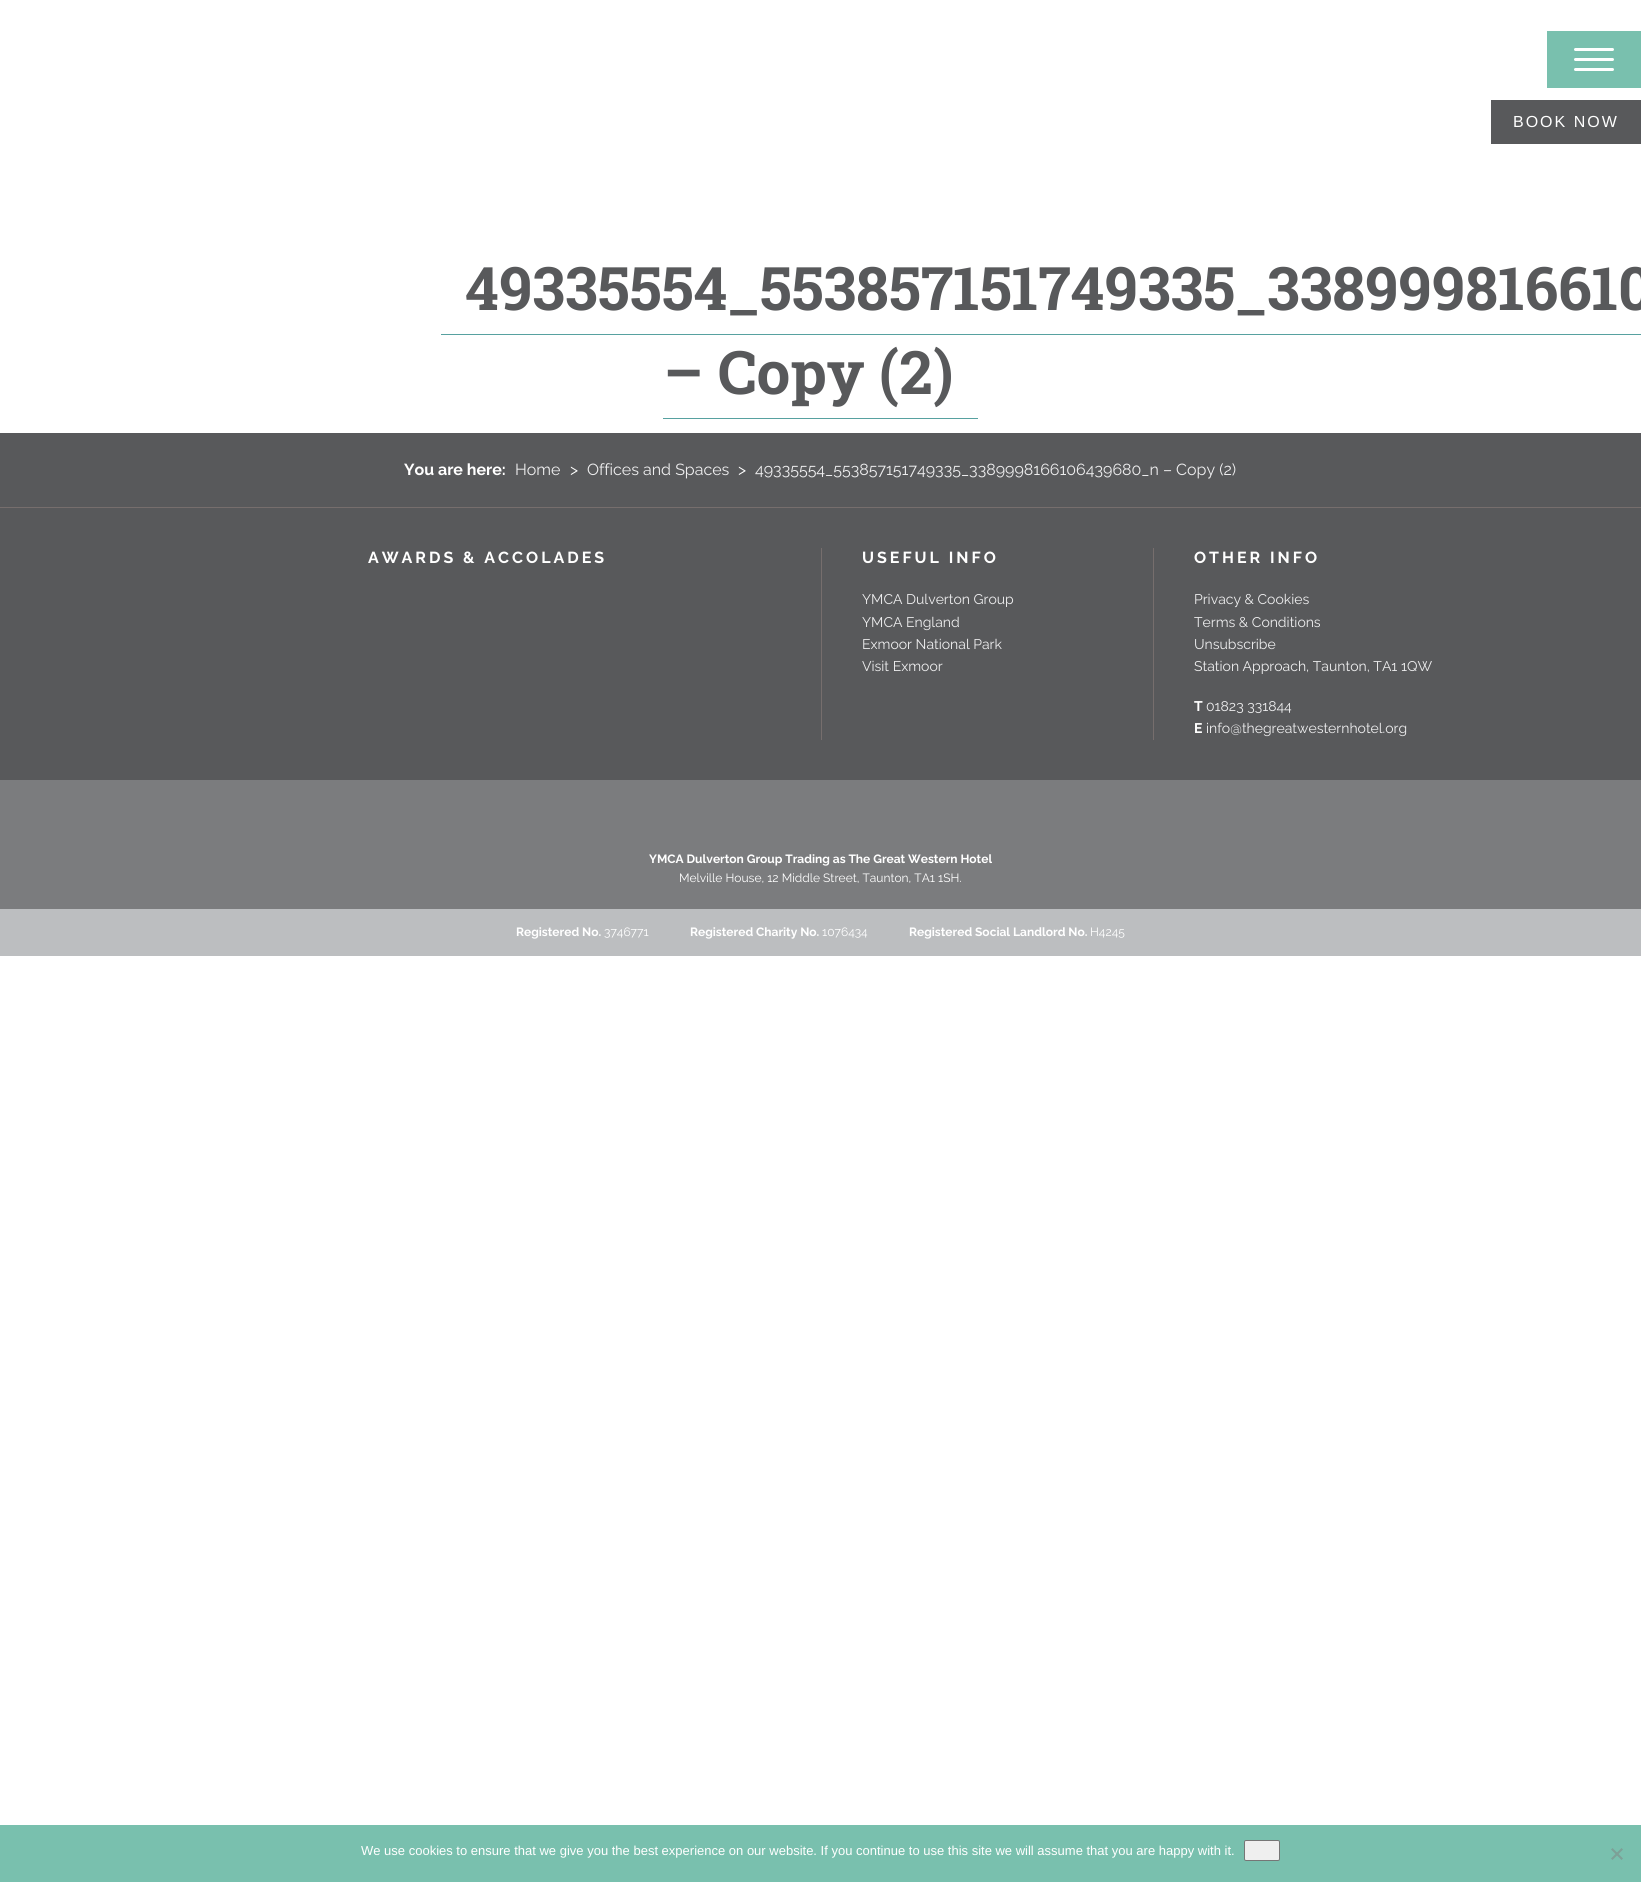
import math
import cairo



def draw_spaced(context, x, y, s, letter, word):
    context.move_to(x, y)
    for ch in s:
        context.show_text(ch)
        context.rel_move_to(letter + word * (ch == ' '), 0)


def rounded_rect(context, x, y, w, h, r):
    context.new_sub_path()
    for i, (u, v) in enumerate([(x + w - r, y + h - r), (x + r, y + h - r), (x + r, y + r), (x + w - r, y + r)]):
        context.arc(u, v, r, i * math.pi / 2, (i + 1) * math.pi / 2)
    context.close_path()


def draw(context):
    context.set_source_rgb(1, 1, 1)
    context.paint()
    context.set_source_rgb(121 / 255, 192 / 255, 174 / 255)
    context.rectangle(1547, 31, 94, 57)
    context.fill()
    context.set_source_rgb(1, 1, 1)
    rounded_rect(context, 1574, 58, 40, 3, 1.5)
    context.fill()
    rounded_rect(context, 1574, 48, 40, 3, 1.5)
    context.fill()
    rounded_rect(context, 1574, 68, 40, 3, 1.5)
    context.fill()
    context.set_source_rgb(88 / 255, 89 / 255, 91 / 255)
    context.rectangle(1491, 100, 150, 44)
    context.fill()
    context.set_source_rgb(87 / 255, 161 / 255, 160 / 255)
    context.rectangle(441, 334, 1200, 1)
    context.fill()
    context.rectangle(663, 418, 315, 1)
    context.fill()
    context.set_source_rgb(88 / 255, 89 / 255, 91 / 255)
    context.rectangle(0, 433, 1641, 347)
    context.fill()
    context.set_source_rgb(118 / 255, 110 / 255, 109 / 255)
    context.rectangle(0, 507, 1641, 1)
    context.fill()
    context.rectangle(821, 548, 1, 192)
    context.fill()
    context.rectangle(1153, 548, 1, 192)
    context.fill()
    context.set_source_rgb(123 / 255, 124 / 255, 126 / 255)
    context.rectangle(0, 780, 1641, 129)
    context.fill()
    context.set_source_rgb(188 / 255, 190 / 255, 192 / 255)
    context.rectangle(0, 909, 1641, 47)
    context.fill()
    context.set_source_rgb(121 / 255, 192 / 255, 174 / 255)
    context.rectangle(0, 1825, 1641, 57)
    context.fill()
    context.set_source_rgb(239 / 255, 239 / 255, 239 / 255)
    rounded_rect(context, 1244.5, 1840.5, 35, 20, 1.5)
    context.fill_preserve()
    context.set_source_rgb(118 / 255, 118 / 255, 118 / 255)
    context.set_line_width(1)
    context.stroke()
    context.set_source_rgb(125 / 255, 160 / 255, 151 / 255)
    context.new_path()
    context.move_to(1621.5, 1848)
    context.line_to(1623, 1849.5)
    context.line_to(1612.5, 1860)
    context.line_to(1611, 1858.5)
    context.close_path()
    context.fill()
    context.new_path()
    context.move_to(1611, 1849.5)
    context.line_to(1612.5, 1848)
    context.line_to(1623, 1858.5)
    context.line_to(1621.5, 1860)
    context.close_path()
    context.fill()
    context.select_font_face("Liberation Sans")
    context.set_font_size(16)
    context.set_source_rgb(1, 1, 1)
    draw_spaced(context, 1513, 127, "BOOK NOW", 2, 0)
    context.select_font_face("Roboto Slab", cairo.FontSlant.NORMAL, cairo.FontWeight.BOLD)
    context.set_font_size(60)
    context.set_source_rgb(88 / 255, 89 / 255, 91 / 255)
    context.move_to(465, 310)
    context.show_text("49335554_553857151749335_338999816610")
    context.move_to(663, 394)
    context.show_text("– Copy (2)")
    context.select_font_face("Raleway", cairo.FontSlant.NORMAL, cairo.FontWeight.BOLD)
    context.set_font_size(16)
    context.set_source_rgb(1, 1, 1)
    context.move_to(404, 475)
    context.show_text("You are here:")
    context.select_font_face("Raleway")
    context.set_source_rgb(238 / 255, 238 / 255, 239 / 255)
    context.move_to(515, 475)
    context.show_text("Home")
    context.set_source_rgb(1, 1, 1)
    context.move_to(570, 475)
    context.show_text(">")
    context.set_source_rgb(238 / 255, 238 / 255, 239 / 255)
    context.move_to(587, 475)
    context.show_text("Offices and Spaces")
    context.set_source_rgb(1, 1, 1)
    context.move_to(738, 475)
    context.show_text(">")
    context.set_source_rgb(238 / 255, 238 / 255, 239 / 255)
    context.move_to(755, 475)
    context.show_text("49335554_553857151749335_3389998166106439680_n – Copy (2)")
    context.select_font_face("Raleway", cairo.FontSlant.NORMAL, cairo.FontWeight.BOLD)
    context.set_source_rgb(1, 1, 1)
    draw_spaced(context, 368, 563, "AWARDS & ACCOLADES", 3, 0)
    draw_spaced(context, 862, 563, "USEFUL INFO", 3, 0)
    context.select_font_face("Raleway")
    context.set_font_size(14)
    context.set_source_rgb(238 / 255, 238 / 255, 239 / 255)
    context.move_to(862, 604)
    context.show_text("YMCA Dulverton Group")
    context.move_to(862, 627)
    context.show_text("YMCA England")
    context.move_to(862, 649)
    context.show_text("Exmoor National Park")
    context.move_to(862, 671)
    context.show_text("Visit Exmoor")
    context.select_font_face("Raleway", cairo.FontSlant.NORMAL, cairo.FontWeight.BOLD)
    context.set_font_size(16)
    context.set_source_rgb(1, 1, 1)
    draw_spaced(context, 1194, 563, "OTHER INFO", 3, 0)
    context.select_font_face("Raleway")
    context.set_font_size(14)
    context.set_source_rgb(238 / 255, 238 / 255, 239 / 255)
    context.move_to(1194, 604)
    context.show_text("Privacy & Cookies")
    context.move_to(1194, 627)
    context.show_text("Terms & Conditions")
    context.move_to(1194, 649)
    context.show_text("Unsubscribe")
    context.move_to(1194, 671)
    context.show_text("Station Approach, Taunton, TA1 1QW")
    context.select_font_face("Raleway", cairo.FontSlant.NORMAL, cairo.FontWeight.BOLD)
    context.set_source_rgb(1, 1, 1)
    context.move_to(1194, 711)
    context.show_text("T")
    context.select_font_face("Raleway")
    context.set_source_rgb(238 / 255, 238 / 255, 239 / 255)
    context.move_to(1206, 711)
    context.show_text("01823 331844")
    context.select_font_face("Raleway", cairo.FontSlant.NORMAL, cairo.FontWeight.BOLD)
    context.set_source_rgb(1, 1, 1)
    context.move_to(1194, 733)
    context.show_text("E")
    context.select_font_face("Raleway")
    context.set_source_rgb(238 / 255, 238 / 255, 239 / 255)
    context.move_to(1206, 733)
    context.show_text("info@thegreatwesternhotel.org")
    context.select_font_face("Raleway", cairo.FontSlant.NORMAL, cairo.FontWeight.BOLD)
    context.set_font_size(12)
    context.set_source_rgb(1, 1, 1)
    context.move_to(649, 863)
    context.show_text("YMCA Dulverton Group Trading as The Great Western Hotel")
    context.select_font_face("Raleway")
    context.move_to(679, 882)
    context.show_text("Melville House, 12 Middle Street, Taunton, TA1 1SH.")
    context.select_font_face("Raleway", cairo.FontSlant.NORMAL, cairo.FontWeight.BOLD)
    context.move_to(516, 936)
    context.show_text("Registered No.")
    context.select_font_face("Raleway")
    context.move_to(604, 936)
    context.show_text("3746771")
    context.select_font_face("Raleway", cairo.FontSlant.NORMAL, cairo.FontWeight.BOLD)
    context.move_to(690, 936)
    context.show_text("Registered Charity No.")
    context.select_font_face("Raleway")
    context.move_to(822, 936)
    context.show_text("1076434")
    context.select_font_face("Raleway", cairo.FontSlant.NORMAL, cairo.FontWeight.BOLD)
    context.move_to(909, 936)
    context.show_text("Registered Social Landlord No.")
    context.select_font_face("Raleway")
    context.move_to(1090, 936)
    context.show_text("H4245")
    context.select_font_face("Liberation Sans")
    context.set_font_size(13)
    context.move_to(361, 1855)
    context.show_text("We use cookies to ensure that we give you the best experience on our website. If you continue to use this site we will assume that you are happy with it.")


surface = cairo.ImageSurface(cairo.Format.RGB24, 1641, 1882)
context = cairo.Context(surface)
options = cairo.FontOptions()
options.set_hint_metrics(cairo.HintMetrics.OFF)
options.set_hint_style(cairo.HintStyle.NONE)
context.set_font_options(options)
context.set_miter_limit(4)
draw(context)
surface.write_to_png("out.png")
